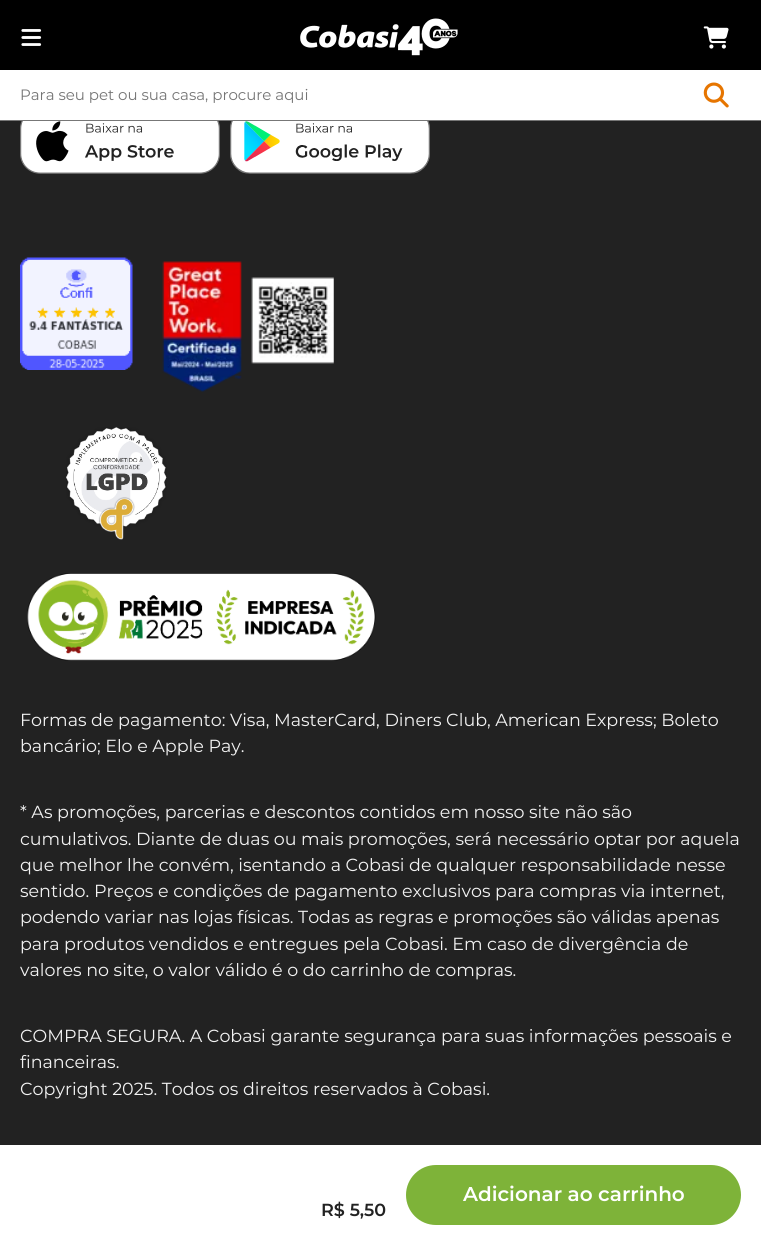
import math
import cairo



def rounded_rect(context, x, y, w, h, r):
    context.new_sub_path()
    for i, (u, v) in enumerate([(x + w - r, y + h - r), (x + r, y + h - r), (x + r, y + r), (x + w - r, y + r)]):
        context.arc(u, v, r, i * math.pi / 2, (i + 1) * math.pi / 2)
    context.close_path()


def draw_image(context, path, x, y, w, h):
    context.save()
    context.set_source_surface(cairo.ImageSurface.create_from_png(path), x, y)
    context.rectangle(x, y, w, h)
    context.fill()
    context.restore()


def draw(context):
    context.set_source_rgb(34 / 255, 34 / 255, 34 / 255)
    context.paint()
    context.set_source_rgb(0, 0, 0)
    context.rectangle(0, 0, 761, 70)
    context.fill()
    draw_image(context, "images/1.png", 703, 26, 26, 23)
    draw_image(context, "images/2.png", 21, 29, 21, 17)
    draw_image(context, "images/3.png", 300, 18, 158, 38)
    context.set_source_rgb(1, 1, 1)
    context.rectangle(0, 70, 761, 50)
    context.fill()
    context.set_source_rgb(119 / 255, 119 / 255, 119 / 255)
    context.rectangle(0, 120, 761, 1)
    context.fill()
    draw_image(context, "images/4.png", 703, 82, 26, 26)
    draw_image(context, "images/5.png", 20, 121, 200, 53)
    draw_image(context, "images/6.png", 230, 121, 200, 53)
    draw_image(context, "images/7.png", 20, 257, 113, 113)
    draw_image(context, "images/8.png", 162, 261, 172, 131)
    draw_image(context, "images/9.png", 66, 427, 101, 113)
    draw_image(context, "images/10.png", 27, 573, 349, 88)
    context.set_source_rgb(1, 1, 1)
    context.rectangle(0, 1145, 761, 100)
    context.fill()
    context.set_source_rgb(126 / 255, 179 / 255, 57 / 255)
    rounded_rect(context, 406, 1165, 335, 60, 30)
    context.fill()
    context.select_font_face("Montserrat")
    context.set_font_size(15)
    context.set_source_rgb(117 / 255, 117 / 255, 117 / 255)
    context.move_to(20, 100)
    context.show_text("Para seu pet ou sua casa, procure aqui")
    context.set_font_size(17.5)
    context.set_source_rgb(242 / 255, 242 / 255, 242 / 255)
    context.move_to(20, 726)
    context.show_text("Formas de pagamento: Visa, MasterCard, Diners Club, American Express; Boleto")
    context.move_to(20, 752)
    context.show_text("bancário; Elo e Apple Pay.")
    context.move_to(20, 818)
    context.show_text("* As promoções, parcerias e descontos contidos em nosso site não são")
    context.move_to(20, 845)
    context.show_text("cumulativos. Diante de duas ou mais promoções, será necessário optar por aquela")
    context.move_to(20, 871)
    context.show_text("que melhor lhe convém, isentando a Cobasi de qualquer responsabilidade nesse")
    context.move_to(20, 897)
    context.show_text("sentido. Preços e condições de pagamento exclusivos para compras via internet,")
    context.move_to(20, 923)
    context.show_text("podendo variar nas lojas físicas. Todas as regras e promoções são válidas apenas")
    context.move_to(20, 950)
    context.show_text("para produtos vendidos e entregues pela Cobasi. Em caso de divergência de")
    context.move_to(20, 976)
    context.show_text("valores no site, o valor válido é o do carrinho de compras.")
    context.move_to(20, 1042)
    context.show_text("COMPRA SEGURA. A Cobasi garante segurança para suas informações pessoais e")
    context.move_to(20, 1068)
    context.show_text("financeiras.")
    context.move_to(20, 1095)
    context.show_text("Copyright 2025. Todos os direitos reservados à Cobasi.")
    context.select_font_face("Montserrat SemiBold")
    context.set_font_size(20)
    context.set_source_rgb(1, 1, 1)
    context.move_to(463, 1201)
    context.show_text("Adicionar ao carrinho")
    context.set_font_size(17.5)
    context.set_source_rgb(34 / 255, 34 / 255, 34 / 255)
    context.move_to(321, 1216)
    context.show_text("R$ 5,50")


surface = cairo.ImageSurface(cairo.Format.RGB24, 761, 1245)
context = cairo.Context(surface)
options = cairo.FontOptions()
options.set_hint_metrics(cairo.HintMetrics.OFF)
options.set_hint_style(cairo.HintStyle.NONE)
context.set_font_options(options)
context.set_miter_limit(4)
draw(context)
surface.write_to_png("out.png")
